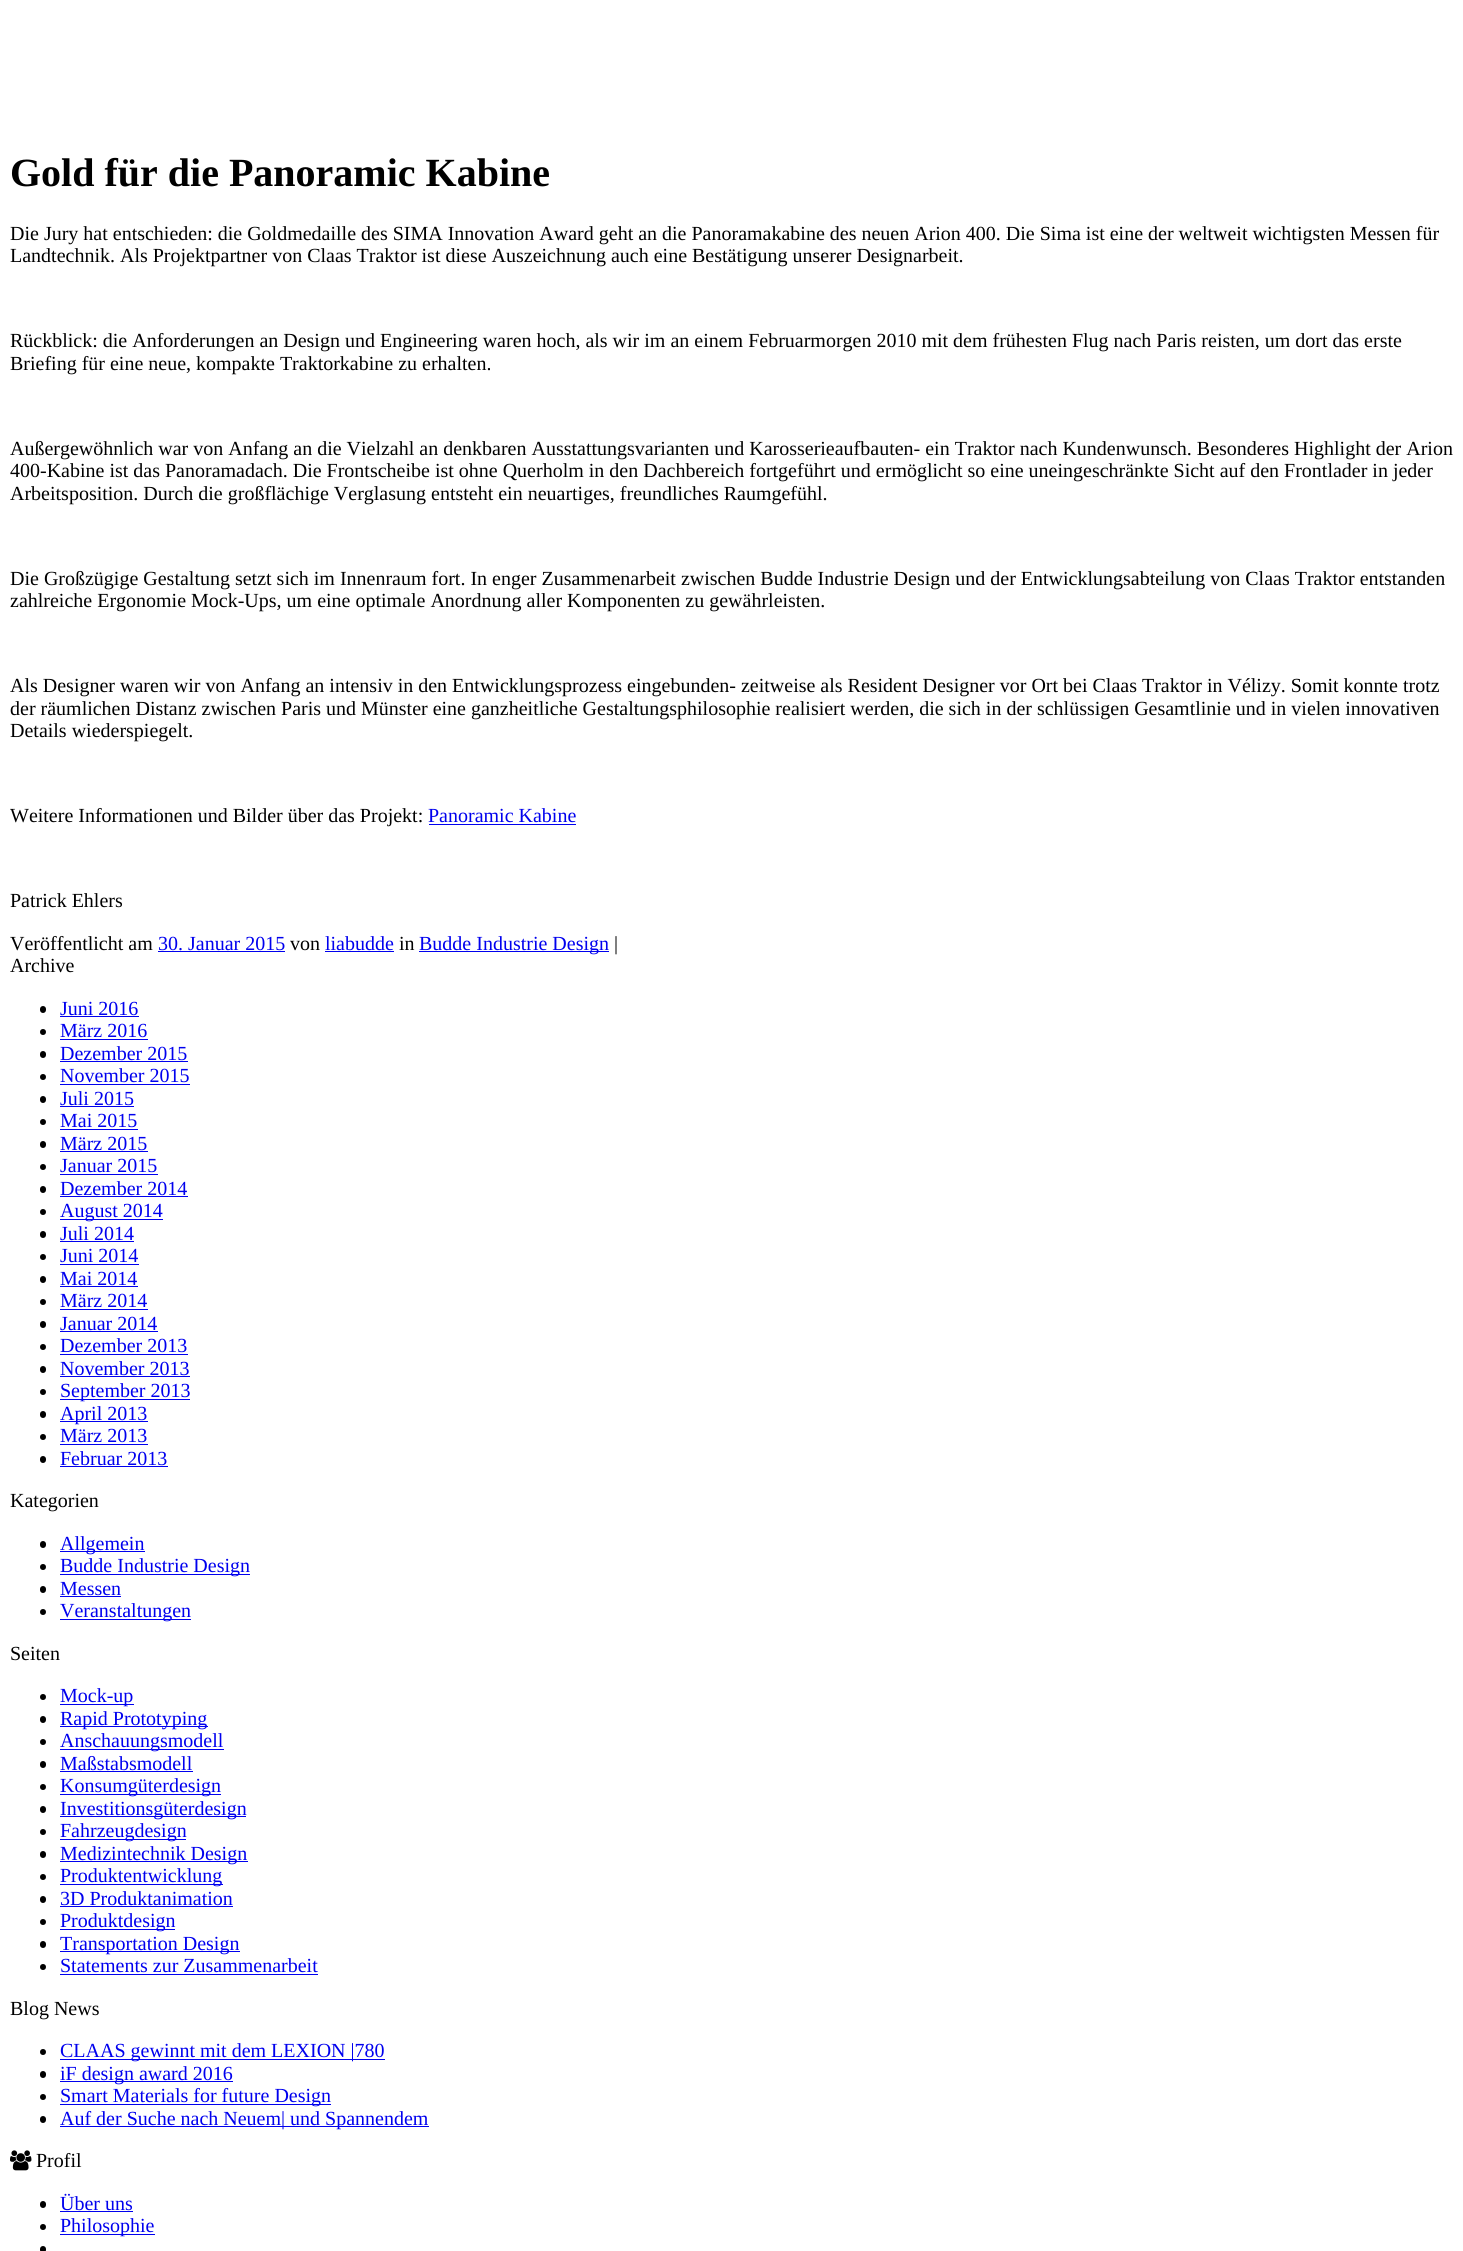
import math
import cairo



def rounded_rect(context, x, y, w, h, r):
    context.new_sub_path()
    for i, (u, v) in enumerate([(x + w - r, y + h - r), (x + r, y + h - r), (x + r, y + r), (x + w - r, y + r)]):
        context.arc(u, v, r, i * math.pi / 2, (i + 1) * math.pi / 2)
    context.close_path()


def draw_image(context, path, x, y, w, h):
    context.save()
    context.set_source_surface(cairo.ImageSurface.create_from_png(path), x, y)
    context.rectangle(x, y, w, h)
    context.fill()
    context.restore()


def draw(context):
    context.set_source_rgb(1, 1, 1)
    context.paint()
    context.set_source_rgb(0, 0, 238 / 255)
    context.rectangle(429, 824, 147, 1)
    context.fill()
    context.rectangle(158, 951, 127, 1)
    context.fill()
    context.rectangle(325, 951, 69, 1)
    context.fill()
    context.rectangle(419, 951, 190, 1)
    context.fill()
    context.set_source_rgb(0, 0, 0)
    rounded_rect(context, 40, 1006, 6, 7, 3)
    context.fill()
    context.set_source_rgb(0, 0, 238 / 255)
    context.rectangle(60, 1016, 79, 1)
    context.fill()
    context.set_source_rgb(0, 0, 0)
    context.arc(43, 1032, 3, 0, 2 * math.pi)
    context.fill()
    context.set_source_rgb(0, 0, 238 / 255)
    context.rectangle(60, 1039, 88, 1)
    context.fill()
    context.set_source_rgb(0, 0, 0)
    rounded_rect(context, 40, 1051, 6, 7, 3)
    context.fill()
    context.set_source_rgb(0, 0, 238 / 255)
    context.rectangle(60, 1061, 128, 1)
    context.fill()
    context.set_source_rgb(0, 0, 0)
    context.arc(43, 1077, 3, 0, 2 * math.pi)
    context.fill()
    context.set_source_rgb(0, 0, 238 / 255)
    context.rectangle(60, 1084, 130, 1)
    context.fill()
    context.set_source_rgb(0, 0, 0)
    rounded_rect(context, 40, 1096, 6, 7, 3)
    context.fill()
    context.set_source_rgb(0, 0, 238 / 255)
    context.rectangle(60, 1106, 74, 1)
    context.fill()
    context.set_source_rgb(0, 0, 0)
    context.arc(43, 1122, 3, 0, 2 * math.pi)
    context.fill()
    context.set_source_rgb(0, 0, 238 / 255)
    context.rectangle(60, 1129, 78, 1)
    context.fill()
    context.set_source_rgb(0, 0, 0)
    rounded_rect(context, 40, 1141, 6, 7, 3)
    context.fill()
    context.set_source_rgb(0, 0, 238 / 255)
    context.rectangle(60, 1151, 88, 1)
    context.fill()
    context.set_source_rgb(0, 0, 0)
    context.arc(43, 1167, 3, 0, 2 * math.pi)
    context.fill()
    context.set_source_rgb(0, 0, 238 / 255)
    context.rectangle(60, 1174, 98, 1)
    context.fill()
    context.set_source_rgb(0, 0, 0)
    rounded_rect(context, 40, 1186, 6, 7, 3)
    context.fill()
    context.set_source_rgb(0, 0, 238 / 255)
    context.rectangle(60, 1196, 128, 1)
    context.fill()
    context.set_source_rgb(0, 0, 0)
    context.arc(43, 1212, 3, 0, 2 * math.pi)
    context.fill()
    context.set_source_rgb(0, 0, 238 / 255)
    context.rectangle(60, 1219, 103, 1)
    context.fill()
    context.set_source_rgb(0, 0, 0)
    rounded_rect(context, 40, 1231, 6, 7, 3)
    context.fill()
    context.set_source_rgb(0, 0, 238 / 255)
    context.rectangle(60, 1241, 74, 1)
    context.fill()
    context.set_source_rgb(0, 0, 0)
    context.arc(43, 1257, 3, 0, 2 * math.pi)
    context.fill()
    context.set_source_rgb(0, 0, 238 / 255)
    context.rectangle(60, 1264, 79, 1)
    context.fill()
    context.set_source_rgb(0, 0, 0)
    rounded_rect(context, 40, 1276, 6, 7, 3)
    context.fill()
    context.set_source_rgb(0, 0, 238 / 255)
    context.rectangle(60, 1286, 78, 1)
    context.fill()
    context.set_source_rgb(0, 0, 0)
    context.arc(43, 1302, 3, 0, 2 * math.pi)
    context.fill()
    context.set_source_rgb(0, 0, 238 / 255)
    context.rectangle(60, 1309, 88, 1)
    context.fill()
    context.set_source_rgb(0, 0, 0)
    rounded_rect(context, 40, 1321, 6, 7, 3)
    context.fill()
    context.set_source_rgb(0, 0, 238 / 255)
    context.rectangle(60, 1331, 98, 1)
    context.fill()
    context.set_source_rgb(0, 0, 0)
    context.arc(43, 1347, 3, 0, 2 * math.pi)
    context.fill()
    context.set_source_rgb(0, 0, 238 / 255)
    context.rectangle(60, 1354, 128, 1)
    context.fill()
    context.set_source_rgb(0, 0, 0)
    rounded_rect(context, 40, 1366, 6, 7, 3)
    context.fill()
    context.set_source_rgb(0, 0, 238 / 255)
    context.rectangle(60, 1376, 130, 1)
    context.fill()
    context.set_source_rgb(0, 0, 0)
    context.arc(43, 1392, 3, 0, 2 * math.pi)
    context.fill()
    context.set_source_rgb(0, 0, 238 / 255)
    context.rectangle(60, 1399, 130, 1)
    context.fill()
    context.set_source_rgb(0, 0, 0)
    rounded_rect(context, 40, 1411, 6, 7, 3)
    context.fill()
    context.set_source_rgb(0, 0, 238 / 255)
    context.rectangle(60, 1421, 88, 1)
    context.fill()
    context.set_source_rgb(0, 0, 0)
    context.arc(43, 1437, 3, 0, 2 * math.pi)
    context.fill()
    context.set_source_rgb(0, 0, 238 / 255)
    context.rectangle(60, 1444, 88, 1)
    context.fill()
    context.set_source_rgb(0, 0, 0)
    rounded_rect(context, 40, 1456, 6, 7, 3)
    context.fill()
    context.set_source_rgb(0, 0, 238 / 255)
    context.rectangle(60, 1466, 108, 1)
    context.fill()
    context.set_source_rgb(0, 0, 0)
    rounded_rect(context, 40, 1541, 6, 7, 3)
    context.fill()
    context.set_source_rgb(0, 0, 238 / 255)
    context.rectangle(60, 1551, 85, 1)
    context.fill()
    context.set_source_rgb(0, 0, 0)
    context.arc(43, 1567, 3, 0, 2 * math.pi)
    context.fill()
    context.set_source_rgb(0, 0, 238 / 255)
    context.rectangle(60, 1574, 190, 1)
    context.fill()
    context.set_source_rgb(0, 0, 0)
    rounded_rect(context, 40, 1586, 6, 7, 3)
    context.fill()
    context.set_source_rgb(0, 0, 238 / 255)
    context.rectangle(60, 1596, 61, 1)
    context.fill()
    context.set_source_rgb(0, 0, 0)
    context.arc(43, 1612, 3, 0, 2 * math.pi)
    context.fill()
    context.set_source_rgb(0, 0, 238 / 255)
    context.rectangle(60, 1619, 131, 1)
    context.fill()
    context.set_source_rgb(0, 0, 0)
    context.arc(43, 1697, 3, 0, 2 * math.pi)
    context.fill()
    context.set_source_rgb(0, 0, 238 / 255)
    context.rectangle(60, 1704, 74, 1)
    context.fill()
    context.set_source_rgb(0, 0, 0)
    rounded_rect(context, 40, 1716, 6, 7, 3)
    context.fill()
    context.set_source_rgb(0, 0, 238 / 255)
    context.rectangle(60, 1726, 148, 1)
    context.fill()
    context.set_source_rgb(0, 0, 0)
    context.arc(43, 1742, 3, 0, 2 * math.pi)
    context.fill()
    context.set_source_rgb(0, 0, 238 / 255)
    context.rectangle(60, 1749, 164, 1)
    context.fill()
    context.set_source_rgb(0, 0, 0)
    rounded_rect(context, 40, 1761, 6, 7, 3)
    context.fill()
    context.set_source_rgb(0, 0, 238 / 255)
    context.rectangle(60, 1771, 133, 1)
    context.fill()
    context.set_source_rgb(0, 0, 0)
    context.arc(43, 1787, 3, 0, 2 * math.pi)
    context.fill()
    context.set_source_rgb(0, 0, 238 / 255)
    context.rectangle(60, 1794, 161, 1)
    context.fill()
    context.set_source_rgb(0, 0, 0)
    rounded_rect(context, 40, 1806, 6, 7, 3)
    context.fill()
    context.set_source_rgb(0, 0, 238 / 255)
    context.rectangle(60, 1816, 186, 1)
    context.fill()
    context.set_source_rgb(0, 0, 0)
    context.arc(43, 1832, 3, 0, 2 * math.pi)
    context.fill()
    context.set_source_rgb(0, 0, 238 / 255)
    context.rectangle(60, 1839, 126, 1)
    context.fill()
    context.set_source_rgb(0, 0, 0)
    rounded_rect(context, 40, 1851, 6, 7, 3)
    context.fill()
    context.set_source_rgb(0, 0, 238 / 255)
    context.rectangle(60, 1861, 188, 1)
    context.fill()
    context.set_source_rgb(0, 0, 0)
    context.arc(43, 1877, 3, 0, 2 * math.pi)
    context.fill()
    context.set_source_rgb(0, 0, 238 / 255)
    context.rectangle(60, 1884, 163, 1)
    context.fill()
    context.set_source_rgb(0, 0, 0)
    rounded_rect(context, 40, 1896, 6, 7, 3)
    context.fill()
    context.set_source_rgb(0, 0, 238 / 255)
    context.rectangle(60, 1906, 173, 1)
    context.fill()
    context.set_source_rgb(0, 0, 0)
    context.arc(43, 1922, 3, 0, 2 * math.pi)
    context.fill()
    context.set_source_rgb(0, 0, 238 / 255)
    context.rectangle(60, 1929, 115, 1)
    context.fill()
    context.set_source_rgb(0, 0, 0)
    rounded_rect(context, 40, 1941, 6, 7, 3)
    context.fill()
    context.set_source_rgb(0, 0, 238 / 255)
    context.rectangle(60, 1951, 180, 1)
    context.fill()
    context.set_source_rgb(0, 0, 0)
    context.arc(43, 1967, 3, 0, 2 * math.pi)
    context.fill()
    context.set_source_rgb(0, 0, 238 / 255)
    context.rectangle(60, 1974, 258, 1)
    context.fill()
    context.set_source_rgb(0, 0, 0)
    context.arc(43, 2052, 3, 0, 2 * math.pi)
    context.fill()
    context.set_source_rgb(0, 0, 238 / 255)
    context.rectangle(60, 2059, 325, 1)
    context.fill()
    context.set_source_rgb(0, 0, 0)
    rounded_rect(context, 40, 2071, 6, 7, 3)
    context.fill()
    context.set_source_rgb(0, 0, 238 / 255)
    context.rectangle(60, 2081, 173, 1)
    context.fill()
    context.set_source_rgb(0, 0, 0)
    context.arc(43, 2097, 3, 0, 2 * math.pi)
    context.fill()
    context.set_source_rgb(0, 0, 238 / 255)
    context.rectangle(60, 2104, 271, 1)
    context.fill()
    context.set_source_rgb(0, 0, 0)
    rounded_rect(context, 40, 2116, 6, 7, 3)
    context.fill()
    context.set_source_rgb(0, 0, 238 / 255)
    context.rectangle(60, 2126, 369, 1)
    context.fill()
    draw_image(context, "images/1.png", 10, 2150, 22, 21)
    context.set_source_rgb(0, 0, 0)
    rounded_rect(context, 40, 2201, 6, 7, 3)
    context.fill()
    context.set_source_rgb(0, 0, 238 / 255)
    context.rectangle(60, 2211, 73, 1)
    context.fill()
    context.set_source_rgb(0, 0, 0)
    context.arc(43, 2227, 3, 0, 2 * math.pi)
    context.fill()
    context.set_source_rgb(0, 0, 238 / 255)
    context.rectangle(60, 2234, 95, 1)
    context.fill()
    context.set_source_rgb(0, 0, 0)
    rounded_rect(context, 40, 2246, 6, 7, 3)
    context.fill()
    context.select_font_face("Liberation Serif", cairo.FontSlant.NORMAL, cairo.FontWeight.BOLD)
    context.set_font_size(40)
    context.move_to(10, 186)
    context.show_text("Gold für die Panoramic Kabine")
    context.select_font_face("Liberation Serif")
    context.set_font_size(20)
    context.move_to(10, 240)
    context.show_text("Die Jury hat entschieden: die Goldmedaille des SIMA Innovation Award geht an die Panoramakabine des neuen Arion 400. Die Sima ist eine der weltweit wichtigsten Messen für")
    context.move_to(10, 262)
    context.show_text("Landtechnik. Als Projektpartner von Claas Traktor ist diese Auszeichnung auch eine Bestätigung unserer Designarbeit.")
    context.move_to(10, 347)
    context.show_text("Rückblick: die Anforderungen an Design und Engineering waren hoch, als wir im an einem Februarmorgen 2010 mit dem frühesten Flug nach Paris reisten, um dort das erste")
    context.move_to(10, 370)
    context.show_text("Briefing für eine neue, kompakte Traktorkabine zu erhalten.")
    context.move_to(10, 455)
    context.show_text("Außergewöhnlich war von Anfang an die Vielzahl an denkbaren Ausstattungsvarianten und Karosserieaufbauten- ein Traktor nach Kundenwunsch. Besonderes Highlight der Arion")
    context.move_to(10, 477)
    context.show_text("400-Kabine ist das Panoramadach. Die Frontscheibe ist ohne Querholm in den Dachbereich fortgeführt und ermöglicht so eine uneingeschränkte Sicht auf den Frontlader in jeder")
    context.move_to(10, 500)
    context.show_text("Arbeitsposition. Durch die großflächige Verglasung entsteht ein neuartiges, freundliches Raumgefühl.")
    context.move_to(10, 585)
    context.show_text("Die Großzügige Gestaltung setzt sich im Innenraum fort. In enger Zusammenarbeit zwischen Budde Industrie Design und der Entwicklungsabteilung von Claas Traktor entstanden")
    context.move_to(10, 607)
    context.show_text("zahlreiche Ergonomie Mock-Ups, um eine optimale Anordnung aller Komponenten zu gewährleisten.")
    context.move_to(10, 692)
    context.show_text("Als Designer waren wir von Anfang an intensiv in den Entwicklungsprozess eingebunden- zeitweise als Resident Designer vor Ort bei Claas Traktor in Vélizy. Somit konnte trotz")
    context.move_to(10, 715)
    context.show_text("der räumlichen Distanz zwischen Paris und Münster eine ganzheitliche Gestaltungsphilosophie realisiert werden, die sich in der schlüssigen Gesamtlinie und in vielen innovativen")
    context.move_to(10, 737)
    context.show_text("Details wiederspiegelt.")
    context.move_to(10, 822)
    context.show_text("Weitere Informationen und Bilder über das Projekt:")
    context.set_source_rgb(0, 0, 238 / 255)
    context.move_to(428, 822)
    context.show_text("Panoramic Kabine")
    context.set_source_rgb(0, 0, 0)
    context.move_to(10, 907)
    context.show_text("Patrick Ehlers")
    context.move_to(10, 950)
    context.show_text("Veröffentlicht am")
    context.set_source_rgb(0, 0, 238 / 255)
    context.move_to(158, 950)
    context.show_text("30. Januar 2015")
    context.set_source_rgb(0, 0, 0)
    context.move_to(290, 950)
    context.show_text("von")
    context.set_source_rgb(0, 0, 238 / 255)
    context.move_to(325, 950)
    context.show_text("liabudde")
    context.set_source_rgb(0, 0, 0)
    context.move_to(399, 950)
    context.show_text("in")
    context.set_source_rgb(0, 0, 238 / 255)
    context.move_to(419, 950)
    context.show_text("Budde Industrie Design")
    context.set_source_rgb(0, 0, 0)
    context.move_to(614, 950)
    context.show_text("|")
    context.move_to(10, 972)
    context.show_text("Archive")
    context.set_source_rgb(0, 0, 238 / 255)
    context.move_to(60, 1015)
    context.show_text("Juni 2016")
    context.move_to(60, 1037)
    context.show_text("März 2016")
    context.move_to(60, 1060)
    context.show_text("Dezember 2015")
    context.move_to(60, 1082)
    context.show_text("November 2015")
    context.move_to(60, 1105)
    context.show_text("Juli 2015")
    context.move_to(60, 1127)
    context.show_text("Mai 2015")
    context.move_to(60, 1150)
    context.show_text("März 2015")
    context.move_to(60, 1172)
    context.show_text("Januar 2015")
    context.move_to(60, 1195)
    context.show_text("Dezember 2014")
    context.move_to(60, 1217)
    context.show_text("August 2014")
    context.move_to(60, 1240)
    context.show_text("Juli 2014")
    context.move_to(60, 1262)
    context.show_text("Juni 2014")
    context.move_to(60, 1285)
    context.show_text("Mai 2014")
    context.move_to(60, 1307)
    context.show_text("März 2014")
    context.move_to(60, 1330)
    context.show_text("Januar 2014")
    context.move_to(60, 1352)
    context.show_text("Dezember 2013")
    context.move_to(60, 1375)
    context.show_text("November 2013")
    context.move_to(60, 1397)
    context.show_text("September 2013")
    context.move_to(60, 1420)
    context.show_text("April 2013")
    context.move_to(60, 1442)
    context.show_text("März 2013")
    context.move_to(60, 1465)
    context.show_text("Februar 2013")
    context.set_source_rgb(0, 0, 0)
    context.move_to(10, 1507)
    context.show_text("Kategorien")
    context.set_source_rgb(0, 0, 238 / 255)
    context.move_to(60, 1550)
    context.show_text("Allgemein")
    context.move_to(60, 1572)
    context.show_text("Budde Industrie Design")
    context.move_to(60, 1595)
    context.show_text("Messen")
    context.move_to(60, 1617)
    context.show_text("Veranstaltungen")
    context.set_source_rgb(0, 0, 0)
    context.move_to(10, 1660)
    context.show_text("Seiten")
    context.set_source_rgb(0, 0, 238 / 255)
    context.move_to(60, 1702)
    context.show_text("Mock-up")
    context.move_to(60, 1725)
    context.show_text("Rapid Prototyping")
    context.move_to(60, 1747)
    context.show_text("Anschauungsmodell")
    context.move_to(60, 1770)
    context.show_text("Maßstabsmodell")
    context.move_to(60, 1792)
    context.show_text("Konsumgüterdesign")
    context.move_to(60, 1815)
    context.show_text("Investitionsgüterdesign")
    context.move_to(60, 1837)
    context.show_text("Fahrzeugdesign")
    context.move_to(60, 1860)
    context.show_text("Medizintechnik Design")
    context.move_to(60, 1882)
    context.show_text("Produktentwicklung")
    context.move_to(60, 1905)
    context.show_text("3D Produktanimation")
    context.move_to(60, 1927)
    context.show_text("Produktdesign")
    context.move_to(60, 1950)
    context.show_text("Transportation Design")
    context.move_to(60, 1972)
    context.show_text("Statements zur Zusammenarbeit")
    context.set_source_rgb(0, 0, 0)
    context.move_to(10, 2015)
    context.show_text("Blog News")
    context.set_source_rgb(0, 0, 238 / 255)
    context.move_to(60, 2057)
    context.show_text("CLAAS gewinnt mit dem LEXION |780")
    context.move_to(60, 2080)
    context.show_text("iF design award 2016")
    context.move_to(60, 2102)
    context.show_text("Smart Materials for future Design")
    context.move_to(60, 2125)
    context.show_text("Auf der Suche nach Neuem| und Spannendem")
    context.set_source_rgb(0, 0, 0)
    context.move_to(36, 2167)
    context.show_text("Profil")
    context.set_source_rgb(0, 0, 238 / 255)
    context.move_to(60, 2210)
    context.show_text("Über uns")
    context.move_to(60, 2232)
    context.show_text("Philosophie")


surface = cairo.ImageSurface(cairo.Format.RGB24, 1463, 2251)
context = cairo.Context(surface)
options = cairo.FontOptions()
options.set_hint_metrics(cairo.HintMetrics.OFF)
options.set_hint_style(cairo.HintStyle.NONE)
context.set_font_options(options)
context.set_miter_limit(4)
draw(context)
surface.write_to_png("out.png")
